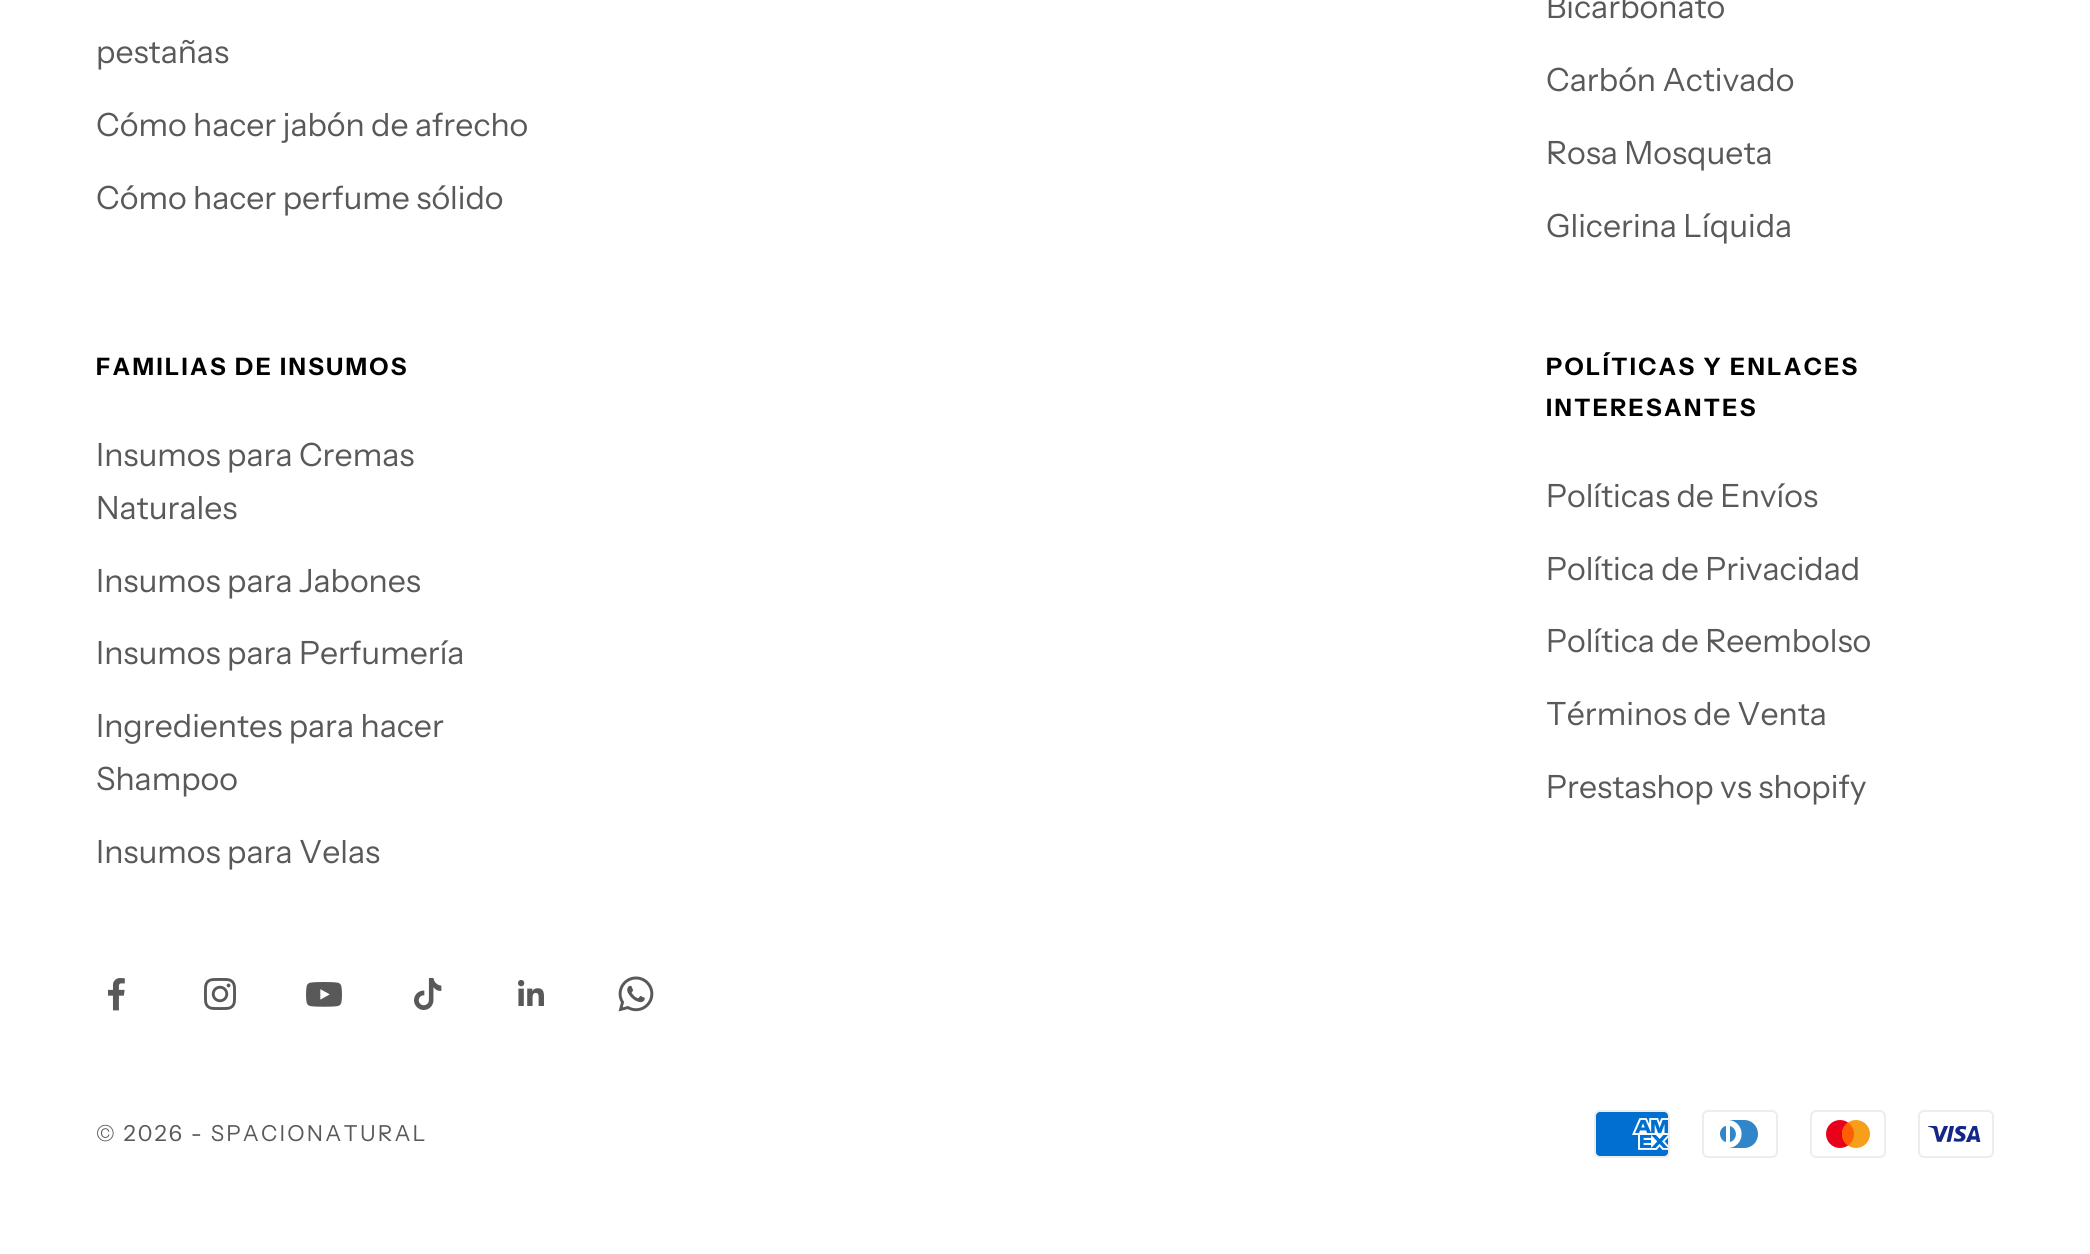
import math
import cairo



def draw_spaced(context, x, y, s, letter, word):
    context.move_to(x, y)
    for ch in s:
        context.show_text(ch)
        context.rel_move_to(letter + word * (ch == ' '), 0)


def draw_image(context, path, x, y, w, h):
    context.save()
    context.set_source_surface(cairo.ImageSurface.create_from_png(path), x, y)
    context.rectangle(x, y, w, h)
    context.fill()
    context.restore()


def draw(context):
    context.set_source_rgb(1, 1, 1)
    context.paint()
    draw_image(context, "images/1.png", 108, 978, 17, 33)
    draw_image(context, "images/2.png", 204, 978, 32, 32)
    draw_image(context, "images/3.png", 306, 982, 36, 25)
    draw_image(context, "images/4.png", 414, 978, 28, 32)
    draw_image(context, "images/5.png", 518, 980, 26, 26)
    draw_image(context, "images/6.png", 618, 976, 36, 36)
    draw_image(context, "images/7.png", 1594, 1110, 76, 48)
    draw_image(context, "images/8.png", 1702, 1110, 76, 48)
    draw_image(context, "images/9.png", 1810, 1110, 76, 48)
    draw_image(context, "images/10.png", 1918, 1110, 76, 48)
    context.select_font_face("Instrument Sans")
    context.set_font_size(32)
    context.set_source_rgb(89 / 255, 89 / 255, 89 / 255)
    context.move_to(96, 63)
    context.show_text("pestañas")
    context.move_to(96, 136)
    context.show_text("Cómo hacer jabón de afrecho")
    context.move_to(96, 209)
    context.show_text("Cómo hacer perfume sólido")
    context.move_to(1546, 18)
    context.show_text("Bicarbonato")
    context.move_to(1546, 91)
    context.show_text("Carbón Activado")
    context.move_to(1546, 164)
    context.show_text("Rosa Mosqueta")
    context.move_to(1546, 237)
    context.show_text("Glicerina Líquida")
    context.select_font_face("Instrument Sans", cairo.FontSlant.NORMAL, cairo.FontWeight.BOLD)
    context.set_font_size(24)
    context.set_source_rgb(0, 0, 0)
    draw_spaced(context, 96, 375, "FAMILIAS DE INSUMOS", 2.4, 0)
    context.select_font_face("Instrument Sans")
    context.set_font_size(32)
    context.set_source_rgb(89 / 255, 89 / 255, 89 / 255)
    context.move_to(96, 466)
    context.show_text("Insumos para Cremas")
    context.move_to(96, 519)
    context.show_text("Naturales")
    context.move_to(96, 592)
    context.show_text("Insumos para Jabones")
    context.move_to(96, 664)
    context.show_text("Insumos para Perfumería")
    context.move_to(96, 737)
    context.show_text("Ingredientes para hacer")
    context.move_to(96, 790)
    context.show_text("Shampoo")
    context.move_to(96, 863)
    context.show_text("Insumos para Velas")
    context.select_font_face("Instrument Sans", cairo.FontSlant.NORMAL, cairo.FontWeight.BOLD)
    context.set_font_size(24)
    context.set_source_rgb(0, 0, 0)
    draw_spaced(context, 1546, 375, "POLÍTICAS Y ENLACES", 2.4, 0)
    draw_spaced(context, 1546, 416, "INTERESANTES", 2.4, 0)
    context.select_font_face("Instrument Sans")
    context.set_font_size(32)
    context.set_source_rgb(89 / 255, 89 / 255, 89 / 255)
    context.move_to(1546, 507)
    context.show_text("Políticas de Envíos")
    context.move_to(1546, 580)
    context.show_text("Política de Privacidad")
    context.move_to(1546, 652)
    context.show_text("Política de Reembolso")
    context.move_to(1546, 725)
    context.show_text("Términos de Venta")
    context.move_to(1546, 798)
    context.show_text("Prestashop vs shopify")
    context.set_font_size(22)
    draw_spaced(context, 96, 1141, "© 2026 - SPACIONATURAL", 2.2, 0)


surface = cairo.ImageSurface(cairo.Format.RGB24, 2090, 1254)
context = cairo.Context(surface)
options = cairo.FontOptions()
options.set_hint_metrics(cairo.HintMetrics.OFF)
options.set_hint_style(cairo.HintStyle.NONE)
context.set_font_options(options)
context.set_miter_limit(4)
draw(context)
surface.write_to_png("out.png")
